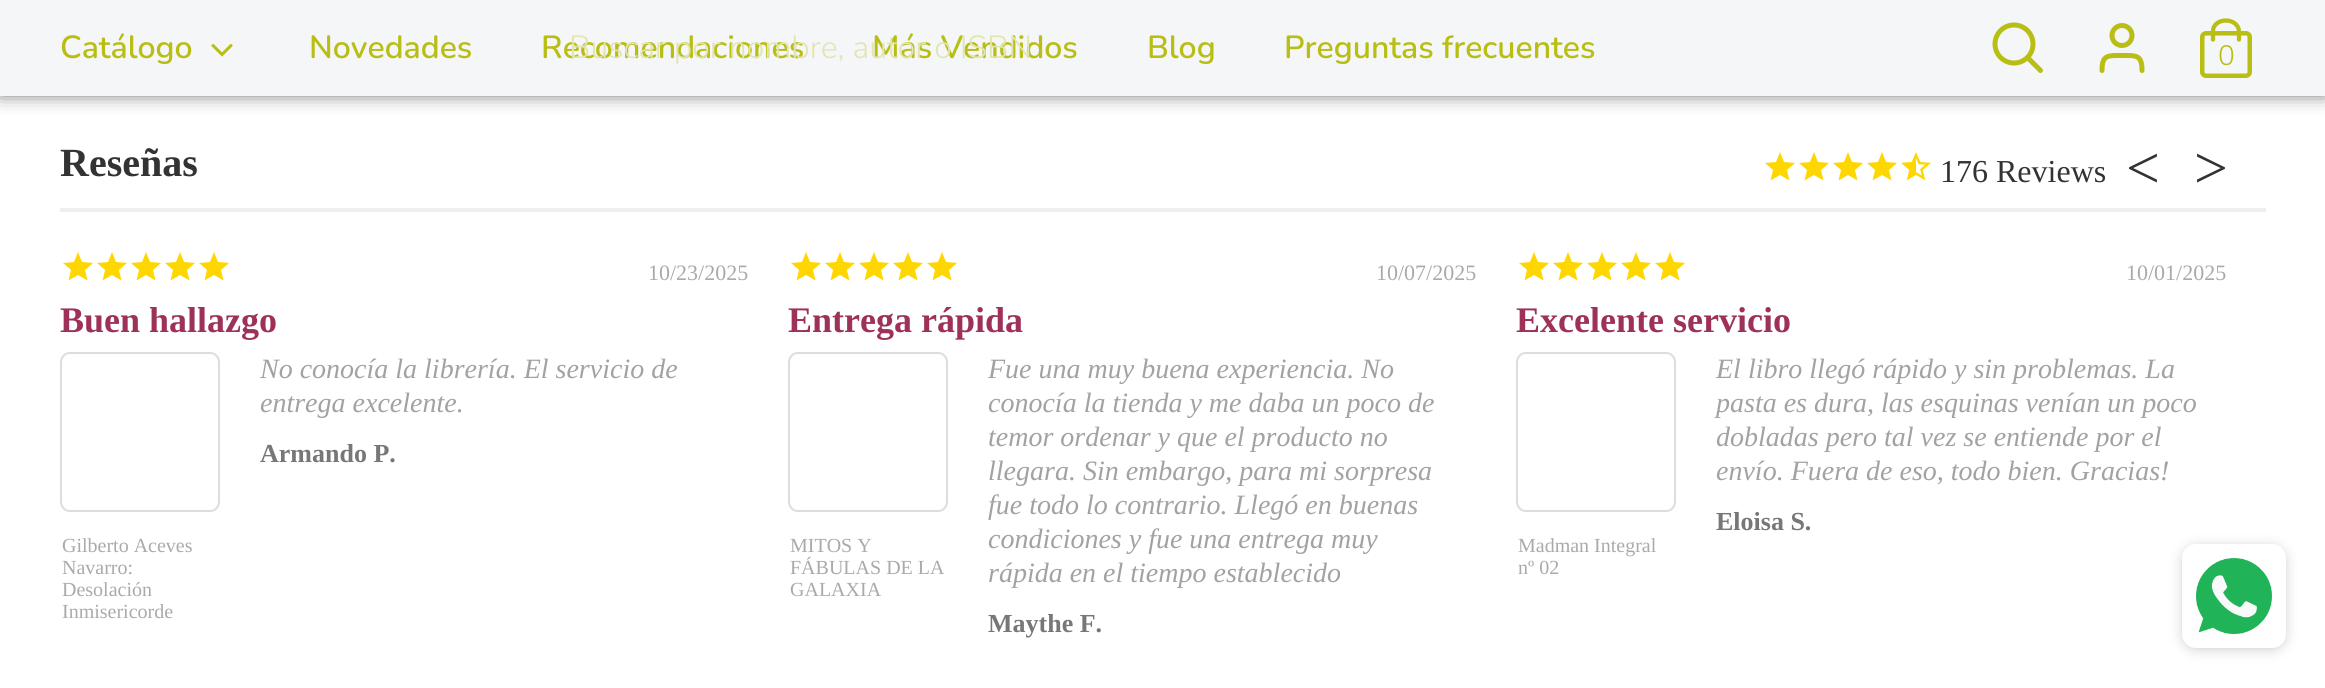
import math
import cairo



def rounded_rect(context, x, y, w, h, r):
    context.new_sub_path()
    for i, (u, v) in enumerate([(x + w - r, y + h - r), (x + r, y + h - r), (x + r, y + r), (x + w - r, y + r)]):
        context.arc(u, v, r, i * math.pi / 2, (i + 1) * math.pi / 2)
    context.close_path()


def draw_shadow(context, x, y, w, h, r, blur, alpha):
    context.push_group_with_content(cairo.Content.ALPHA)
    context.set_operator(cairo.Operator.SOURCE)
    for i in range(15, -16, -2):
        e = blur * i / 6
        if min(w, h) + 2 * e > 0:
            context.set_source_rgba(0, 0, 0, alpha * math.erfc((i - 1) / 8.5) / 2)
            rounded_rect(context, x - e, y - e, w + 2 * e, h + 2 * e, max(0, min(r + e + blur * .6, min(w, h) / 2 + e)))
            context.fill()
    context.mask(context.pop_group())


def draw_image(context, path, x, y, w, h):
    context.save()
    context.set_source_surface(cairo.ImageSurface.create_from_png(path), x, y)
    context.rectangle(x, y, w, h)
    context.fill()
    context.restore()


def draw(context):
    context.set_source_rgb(1, 1, 1)
    context.paint()
    context.set_source_rgb(0, 0, 0)
    draw_shadow(context, 0, -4, 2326, 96, 0, 10, 0.75)
    context.set_source_rgb(244 / 255, 246 / 255, 248 / 255)
    context.rectangle(0, 0, 2325, 96)
    context.fill()
    context.new_path()
    context.move_to(213, 45.5)
    context.line_to(222, 54.5)
    context.line_to(231, 45.5)
    context.set_source_rgb(184 / 255, 190 / 255, 20 / 255)
    context.set_line_width(3)
    context.set_line_cap(cairo.LineCap.ROUND)
    context.stroke()
    context.arc(2014, 44, 19, 0, 2 * math.pi)
    context.set_line_width(5)
    context.set_line_cap(cairo.LineCap.BUTT)
    context.stroke()
    context.new_path()
    context.move_to(2040.5, 70.5)
    context.line_to(2027.5, 57.5)
    context.set_line_cap(cairo.LineCap.ROUND)
    context.stroke()
    context.new_path()
    context.move_to(2142, 70.5)
    context.curve_to(2142, 54.5, 2136, 55.5, 2122, 55.5)
    context.curve_to(2108, 55.5, 2102, 54.5, 2102, 70.5)
    context.stroke()
    context.arc(2122, 35.5, 10, 0, 2 * math.pi)
    context.set_line_cap(cairo.LineCap.BUTT)
    context.stroke()
    rounded_rect(context, 2202.25, 33.25, 47.5, 42.5, 3.75)
    context.set_line_width(4.5)
    context.stroke()
    context.new_path()
    context.move_to(2213, 39.5)
    context.line_to(2213, 31)
    context.curve_to(2213, 25, 2218.5, 20.5, 2226, 20.5)
    context.curve_to(2233, 20.5, 2238.5, 25, 2239, 31)
    context.line_to(2239, 39.5)
    context.set_line_width(4.3)
    context.set_line_cap(cairo.LineCap.ROUND)
    context.stroke()
    context.set_source_rgb(1, 215 / 255, 0)
    context.new_path()
    context.move_to(1780, 175)
    context.line_to(1770.5, 180.5)
    context.line_to(1773, 170)
    context.line_to(1765, 163)
    context.line_to(1776, 162)
    context.line_to(1780, 152)
    context.line_to(1784, 162)
    context.line_to(1795, 163)
    context.line_to(1787, 170)
    context.line_to(1789.5, 180.5)
    context.close_path()
    context.fill()
    context.new_path()
    context.move_to(1814, 175)
    context.line_to(1804.5, 180.5)
    context.line_to(1807, 170)
    context.line_to(1799, 163)
    context.line_to(1810, 162)
    context.line_to(1814, 152)
    context.line_to(1818, 162)
    context.line_to(1829, 163)
    context.line_to(1821, 170)
    context.line_to(1823.5, 180.5)
    context.close_path()
    context.fill()
    context.new_path()
    context.move_to(1848, 175)
    context.line_to(1838.5, 180.5)
    context.line_to(1841, 170)
    context.line_to(1833, 163)
    context.line_to(1844, 162)
    context.line_to(1848, 152)
    context.line_to(1852, 162)
    context.line_to(1863, 163)
    context.line_to(1855, 170)
    context.line_to(1857.5, 180.5)
    context.close_path()
    context.fill()
    context.new_path()
    context.move_to(1882, 175)
    context.line_to(1872.5, 180.5)
    context.line_to(1875, 170)
    context.line_to(1867, 163)
    context.line_to(1878, 162)
    context.line_to(1882, 152)
    context.line_to(1886, 162)
    context.line_to(1897, 163)
    context.line_to(1889, 170)
    context.line_to(1891.5, 180.5)
    context.close_path()
    context.fill()
    draw_image(context, "images/1.png", 1901, 152, 30, 29)
    context.set_source_rgb(238 / 255, 238 / 255, 238 / 255)
    context.rectangle(60, 208, 2206, 4)
    context.fill()
    context.set_source_rgb(1, 215 / 255, 0)
    context.new_path()
    context.move_to(78, 275)
    context.line_to(68.5, 280.5)
    context.line_to(71, 270)
    context.line_to(63, 263)
    context.line_to(74, 262)
    context.line_to(78, 252)
    context.line_to(82, 262)
    context.line_to(93, 263)
    context.line_to(85, 270)
    context.line_to(87.5, 280.5)
    context.close_path()
    context.fill()
    context.new_path()
    context.move_to(112, 275)
    context.line_to(102.5, 280.5)
    context.line_to(105, 270)
    context.line_to(97, 263)
    context.line_to(108, 262)
    context.line_to(112, 252)
    context.line_to(116, 262)
    context.line_to(127, 263)
    context.line_to(119, 270)
    context.line_to(121.5, 280.5)
    context.close_path()
    context.fill()
    context.new_path()
    context.move_to(146, 275)
    context.line_to(136.5, 280.5)
    context.line_to(139, 270)
    context.line_to(131, 263)
    context.line_to(142, 262)
    context.line_to(146, 252)
    context.line_to(150, 262)
    context.line_to(161, 263)
    context.line_to(153, 270)
    context.line_to(155.5, 280.5)
    context.close_path()
    context.fill()
    context.new_path()
    context.move_to(180, 275)
    context.line_to(170.5, 280.5)
    context.line_to(173, 270)
    context.line_to(165, 263)
    context.line_to(176, 262)
    context.line_to(180, 252)
    context.line_to(184, 262)
    context.line_to(195, 263)
    context.line_to(187, 270)
    context.line_to(189.5, 280.5)
    context.close_path()
    context.fill()
    context.new_path()
    context.move_to(214, 275)
    context.line_to(204.5, 280.5)
    context.line_to(207, 270)
    context.line_to(199, 263)
    context.line_to(210, 262)
    context.line_to(214, 252)
    context.line_to(218, 262)
    context.line_to(229, 263)
    context.line_to(221, 270)
    context.line_to(223.5, 280.5)
    context.close_path()
    context.fill()
    rounded_rect(context, 61, 353, 158, 158, 9)
    context.set_source_rgb(221 / 255, 221 / 255, 221 / 255)
    context.set_line_width(2)
    context.set_line_cap(cairo.LineCap.BUTT)
    context.stroke()
    context.set_source_rgb(1, 215 / 255, 0)
    context.new_path()
    context.move_to(806, 275)
    context.line_to(796.5, 280.5)
    context.line_to(799, 270)
    context.line_to(791, 263)
    context.line_to(802, 262)
    context.line_to(806, 252)
    context.line_to(810, 262)
    context.line_to(821, 263)
    context.line_to(813, 270)
    context.line_to(815.5, 280.5)
    context.close_path()
    context.fill()
    context.new_path()
    context.move_to(840, 275)
    context.line_to(830.5, 280.5)
    context.line_to(833, 270)
    context.line_to(825, 263)
    context.line_to(836, 262)
    context.line_to(840, 252)
    context.line_to(844, 262)
    context.line_to(855, 263)
    context.line_to(847, 270)
    context.line_to(849.5, 280.5)
    context.close_path()
    context.fill()
    context.new_path()
    context.move_to(874, 275)
    context.line_to(864.5, 280.5)
    context.line_to(867, 270)
    context.line_to(859, 263)
    context.line_to(870, 262)
    context.line_to(874, 252)
    context.line_to(878, 262)
    context.line_to(889, 263)
    context.line_to(881, 270)
    context.line_to(883.5, 280.5)
    context.close_path()
    context.fill()
    context.new_path()
    context.move_to(908, 275)
    context.line_to(898.5, 280.5)
    context.line_to(901, 270)
    context.line_to(893, 263)
    context.line_to(904, 262)
    context.line_to(908, 252)
    context.line_to(912, 262)
    context.line_to(923, 263)
    context.line_to(915, 270)
    context.line_to(917.5, 280.5)
    context.close_path()
    context.fill()
    context.new_path()
    context.move_to(942, 275)
    context.line_to(932.5, 280.5)
    context.line_to(935, 270)
    context.line_to(927, 263)
    context.line_to(938, 262)
    context.line_to(942, 252)
    context.line_to(946, 262)
    context.line_to(957, 263)
    context.line_to(949, 270)
    context.line_to(951.5, 280.5)
    context.close_path()
    context.fill()
    rounded_rect(context, 789, 353, 158, 158, 9)
    context.set_source_rgb(221 / 255, 221 / 255, 221 / 255)
    context.stroke()
    context.set_source_rgb(1, 215 / 255, 0)
    context.new_path()
    context.move_to(1534, 275)
    context.line_to(1524.5, 280.5)
    context.line_to(1527, 270)
    context.line_to(1519, 263)
    context.line_to(1530, 262)
    context.line_to(1534, 252)
    context.line_to(1538, 262)
    context.line_to(1549, 263)
    context.line_to(1541, 270)
    context.line_to(1543.5, 280.5)
    context.close_path()
    context.fill()
    context.new_path()
    context.move_to(1568, 275)
    context.line_to(1558.5, 280.5)
    context.line_to(1561, 270)
    context.line_to(1553, 263)
    context.line_to(1564, 262)
    context.line_to(1568, 252)
    context.line_to(1572, 262)
    context.line_to(1583, 263)
    context.line_to(1575, 270)
    context.line_to(1577.5, 280.5)
    context.close_path()
    context.fill()
    context.new_path()
    context.move_to(1602, 275)
    context.line_to(1592.5, 280.5)
    context.line_to(1595, 270)
    context.line_to(1587, 263)
    context.line_to(1598, 262)
    context.line_to(1602, 252)
    context.line_to(1606, 262)
    context.line_to(1617, 263)
    context.line_to(1609, 270)
    context.line_to(1611.5, 280.5)
    context.close_path()
    context.fill()
    context.new_path()
    context.move_to(1636, 275)
    context.line_to(1626.5, 280.5)
    context.line_to(1629, 270)
    context.line_to(1621, 263)
    context.line_to(1632, 262)
    context.line_to(1636, 252)
    context.line_to(1640, 262)
    context.line_to(1651, 263)
    context.line_to(1643, 270)
    context.line_to(1645.5, 280.5)
    context.close_path()
    context.fill()
    context.new_path()
    context.move_to(1670, 275)
    context.line_to(1660.5, 280.5)
    context.line_to(1663, 270)
    context.line_to(1655, 263)
    context.line_to(1666, 262)
    context.line_to(1670, 252)
    context.line_to(1674, 262)
    context.line_to(1685, 263)
    context.line_to(1677, 270)
    context.line_to(1679.5, 280.5)
    context.close_path()
    context.fill()
    rounded_rect(context, 1517, 353, 158, 158, 9)
    context.set_source_rgb(221 / 255, 221 / 255, 221 / 255)
    context.stroke()
    context.set_source_rgb(27 / 255, 27 / 255, 27 / 255)
    draw_shadow(context, 2182, 546, 104, 104, 14, 6, 0.2)
    context.set_source_rgb(1, 1, 1)
    rounded_rect(context, 2183, 545, 102, 102, 13)
    context.fill_preserve()
    context.stroke()
    draw_image(context, "images/2.png", 2196, 558, 76, 76)
    context.select_font_face("Nunito SemiBold")
    context.set_font_size(32)
    context.set_source_rgb(184 / 255, 190 / 255, 20 / 255)
    context.move_to(60, 58)
    context.show_text("Catálogo")
    context.move_to(309, 58)
    context.show_text("Novedades")
    context.move_to(541, 58)
    context.show_text("Recomendaciones")
    context.move_to(872, 58)
    context.show_text("Más Vendidos")
    context.move_to(1147, 58)
    context.show_text("Blog")
    context.move_to(1284, 58)
    context.show_text("Preguntas frecuentes")
    context.select_font_face("Nunito Light")
    context.set_source_rgb(226 / 255, 229 / 255, 178 / 255)
    context.move_to(569, 58)
    context.show_text("Buscar por nombre, autor o ISBN")
    context.set_font_size(28)
    context.set_source_rgb(184 / 255, 190 / 255, 20 / 255)
    context.move_to(2218, 65)
    context.show_text("0")
    context.select_font_face("Liberation Serif", cairo.FontSlant.NORMAL, cairo.FontWeight.BOLD)
    context.set_font_size(40)
    context.set_source_rgb(51 / 255, 51 / 255, 51 / 255)
    context.move_to(60, 176)
    context.show_text("Reseñas")
    context.select_font_face("Liberation Serif")
    context.set_font_size(32)
    context.move_to(1940, 182)
    context.show_text("176 Reviews")
    context.set_font_size(60)
    context.move_to(2126, 188)
    context.show_text("<")
    context.move_to(2194, 188)
    context.show_text(">")
    context.set_font_size(22)
    context.set_source_rgb(170 / 255, 170 / 255, 170 / 255)
    context.move_to(648, 280)
    context.show_text("10/23/2025")
    context.select_font_face("Liberation Serif", cairo.FontSlant.NORMAL, cairo.FontWeight.BOLD)
    context.set_font_size(36)
    context.set_source_rgb(158 / 255, 49 / 255, 89 / 255)
    context.move_to(60, 332)
    context.show_text("Buen hallazgo")
    context.select_font_face("Liberation Serif", cairo.FontSlant.ITALIC)
    context.set_font_size(28)
    context.set_source_rgb(162 / 255, 162 / 255, 162 / 255)
    context.move_to(260, 378)
    context.show_text("No conocía la librería. El servicio de")
    context.move_to(260, 412)
    context.show_text("entrega excelente.")
    context.select_font_face("Liberation Serif", cairo.FontSlant.NORMAL, cairo.FontWeight.BOLD)
    context.set_font_size(26)
    context.set_source_rgb(119 / 255, 119 / 255, 119 / 255)
    context.move_to(260, 462)
    context.show_text("Armando P.")
    context.select_font_face("Liberation Serif")
    context.set_font_size(20)
    context.set_source_rgb(170 / 255, 170 / 255, 170 / 255)
    context.move_to(62, 552)
    context.show_text("Gilberto Aceves")
    context.move_to(62, 574)
    context.show_text("Navarro:")
    context.move_to(62, 596)
    context.show_text("Desolación")
    context.move_to(62, 618)
    context.show_text("Inmisericorde")
    context.set_font_size(22)
    context.move_to(1376, 280)
    context.show_text("10/07/2025")
    context.select_font_face("Liberation Serif", cairo.FontSlant.NORMAL, cairo.FontWeight.BOLD)
    context.set_font_size(36)
    context.set_source_rgb(158 / 255, 49 / 255, 89 / 255)
    context.move_to(788, 332)
    context.show_text("Entrega rápida")
    context.select_font_face("Liberation Serif")
    context.set_font_size(20)
    context.set_source_rgb(170 / 255, 170 / 255, 170 / 255)
    context.move_to(790, 552)
    context.show_text("MITOS Y")
    context.move_to(790, 574)
    context.show_text("FÁBULAS DE LA")
    context.move_to(790, 596)
    context.show_text("GALAXIA")
    context.select_font_face("Liberation Serif", cairo.FontSlant.ITALIC)
    context.set_font_size(28)
    context.set_source_rgb(162 / 255, 162 / 255, 162 / 255)
    context.move_to(988, 378)
    context.show_text("Fue una muy buena experiencia. No")
    context.move_to(988, 412)
    context.show_text("conocía la tienda y me daba un poco de")
    context.move_to(988, 446)
    context.show_text("temor ordenar y que el producto no")
    context.move_to(988, 480)
    context.show_text("llegara. Sin embargo, para mi sorpresa")
    context.move_to(988, 514)
    context.show_text("fue todo lo contrario. Llegó en buenas")
    context.move_to(988, 548)
    context.show_text("condiciones y fue una entrega muy")
    context.move_to(988, 582)
    context.show_text("rápida en el tiempo establecido")
    context.select_font_face("Liberation Serif", cairo.FontSlant.NORMAL, cairo.FontWeight.BOLD)
    context.set_font_size(26)
    context.set_source_rgb(119 / 255, 119 / 255, 119 / 255)
    context.move_to(988, 632)
    context.show_text("Maythe F.")
    context.select_font_face("Liberation Serif")
    context.set_font_size(22)
    context.set_source_rgb(170 / 255, 170 / 255, 170 / 255)
    context.move_to(2126, 280)
    context.show_text("10/01/2025")
    context.select_font_face("Liberation Serif", cairo.FontSlant.NORMAL, cairo.FontWeight.BOLD)
    context.set_font_size(36)
    context.set_source_rgb(158 / 255, 49 / 255, 89 / 255)
    context.move_to(1516, 332)
    context.show_text("Excelente servicio")
    context.select_font_face("Liberation Serif", cairo.FontSlant.ITALIC)
    context.set_font_size(28)
    context.set_source_rgb(162 / 255, 162 / 255, 162 / 255)
    context.move_to(1716, 378)
    context.show_text("El libro llegó rápido y sin problemas. La")
    context.move_to(1716, 412)
    context.show_text("pasta es dura, las esquinas venían un poco")
    context.move_to(1716, 446)
    context.show_text("dobladas pero tal vez se entiende por el")
    context.move_to(1716, 480)
    context.show_text("envío. Fuera de eso, todo bien. Gracias!")
    context.select_font_face("Liberation Serif", cairo.FontSlant.NORMAL, cairo.FontWeight.BOLD)
    context.set_font_size(26)
    context.set_source_rgb(119 / 255, 119 / 255, 119 / 255)
    context.move_to(1716, 530)
    context.show_text("Eloisa S.")
    context.select_font_face("Liberation Serif")
    context.set_font_size(20)
    context.set_source_rgb(170 / 255, 170 / 255, 170 / 255)
    context.move_to(1518, 552)
    context.show_text("Madman Integral")
    context.move_to(1518, 574)
    context.show_text("nº 02")


surface = cairo.ImageSurface(cairo.Format.RGB24, 2325, 688)
context = cairo.Context(surface)
options = cairo.FontOptions()
options.set_hint_metrics(cairo.HintMetrics.OFF)
options.set_hint_style(cairo.HintStyle.NONE)
context.set_font_options(options)
context.set_miter_limit(4)
draw(context)
surface.write_to_png("out.png")
